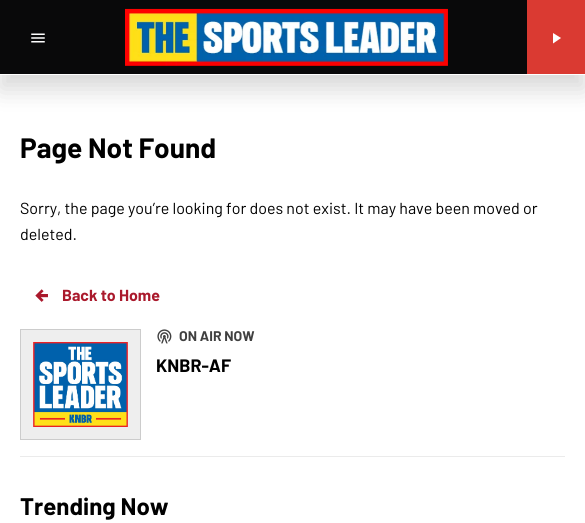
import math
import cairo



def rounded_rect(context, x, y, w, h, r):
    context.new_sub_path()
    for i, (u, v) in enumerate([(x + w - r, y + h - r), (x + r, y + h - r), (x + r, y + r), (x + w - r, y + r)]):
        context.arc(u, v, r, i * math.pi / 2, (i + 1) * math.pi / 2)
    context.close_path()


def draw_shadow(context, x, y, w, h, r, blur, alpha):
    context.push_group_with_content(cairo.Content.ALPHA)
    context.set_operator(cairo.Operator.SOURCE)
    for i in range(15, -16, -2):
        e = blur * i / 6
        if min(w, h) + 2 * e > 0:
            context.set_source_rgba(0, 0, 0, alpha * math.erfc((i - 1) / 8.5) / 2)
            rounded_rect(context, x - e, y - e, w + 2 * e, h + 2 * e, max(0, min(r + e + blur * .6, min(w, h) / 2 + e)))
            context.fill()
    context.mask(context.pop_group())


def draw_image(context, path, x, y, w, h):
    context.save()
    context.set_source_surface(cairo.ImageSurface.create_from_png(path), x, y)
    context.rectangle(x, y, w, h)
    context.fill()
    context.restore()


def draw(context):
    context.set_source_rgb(1, 1, 1)
    context.paint()
    context.set_source_rgb(0, 0, 0)
    draw_shadow(context, 0, 14, 585, 75, 0, 12.5, 0.16)
    context.set_source_rgb(9 / 255, 9 / 255, 10 / 255)
    context.rectangle(0, 0, 527, 74)
    context.fill()
    context.set_source_rgb(1, 1, 1)
    context.rectangle(0, 74, 585, 1)
    context.fill()
    draw_image(context, "images/1.png", 31, 33, 14, 10)
    draw_image(context, "images/2.png", 125, 8, 323, 58)
    context.set_source_rgb(218 / 255, 58 / 255, 50 / 255)
    context.rectangle(527, 0, 58, 74)
    context.fill()
    context.set_source_rgb(1, 1, 1)
    context.new_path()
    context.move_to(553, 33)
    context.line_to(553, 43.5)
    context.line_to(561, 38)
    context.close_path()
    context.fill()
    draw_image(context, "images/3.png", 35, 289, 13, 13)
    context.set_source_rgb(238 / 255, 238 / 255, 238 / 255)
    context.rectangle(20.5, 329.5, 120, 110)
    context.fill_preserve()
    context.set_source_rgb(204 / 255, 204 / 255, 204 / 255)
    context.set_line_width(1)
    context.stroke()
    draw_image(context, "images/4.png", 33, 342, 95, 85)
    draw_image(context, "images/5.png", 157, 329, 15, 15)
    context.set_source_rgb(235 / 255, 235 / 255, 235 / 255)
    context.rectangle(20, 456, 545, 1)
    context.fill()
    context.select_font_face("Barlow", cairo.FontSlant.NORMAL, cairo.FontWeight.BOLD)
    context.set_font_size(28)
    context.set_source_rgb(0, 0, 0)
    context.move_to(20, 158)
    context.show_text("Page Not Found")
    context.select_font_face("Barlow")
    context.set_font_size(16)
    context.move_to(20, 214)
    context.show_text("Sorry, the page you’re looking for does not exist. It may have been moved or")
    context.move_to(20, 240)
    context.show_text("deleted.")
    context.select_font_face("Barlow", cairo.FontSlant.NORMAL, cairo.FontWeight.BOLD)
    context.set_source_rgb(170 / 255, 25 / 255, 44 / 255)
    context.move_to(62, 301)
    context.show_text("Back to Home")
    context.set_font_size(14)
    context.set_source_rgb(64 / 255, 64 / 255, 64 / 255)
    context.move_to(179, 341)
    context.show_text("ON AIR NOW")
    context.set_font_size(18)
    context.set_source_rgb(0, 0, 0)
    context.move_to(156, 372)
    context.show_text("KNBR-AF")
    context.set_font_size(24)
    context.move_to(20, 515)
    context.show_text("Trending Now")


surface = cairo.ImageSurface(cairo.Format.RGB24, 585, 523)
context = cairo.Context(surface)
options = cairo.FontOptions()
options.set_hint_metrics(cairo.HintMetrics.OFF)
options.set_hint_style(cairo.HintStyle.NONE)
context.set_font_options(options)
context.set_miter_limit(4)
draw(context)
surface.write_to_png("out.png")
